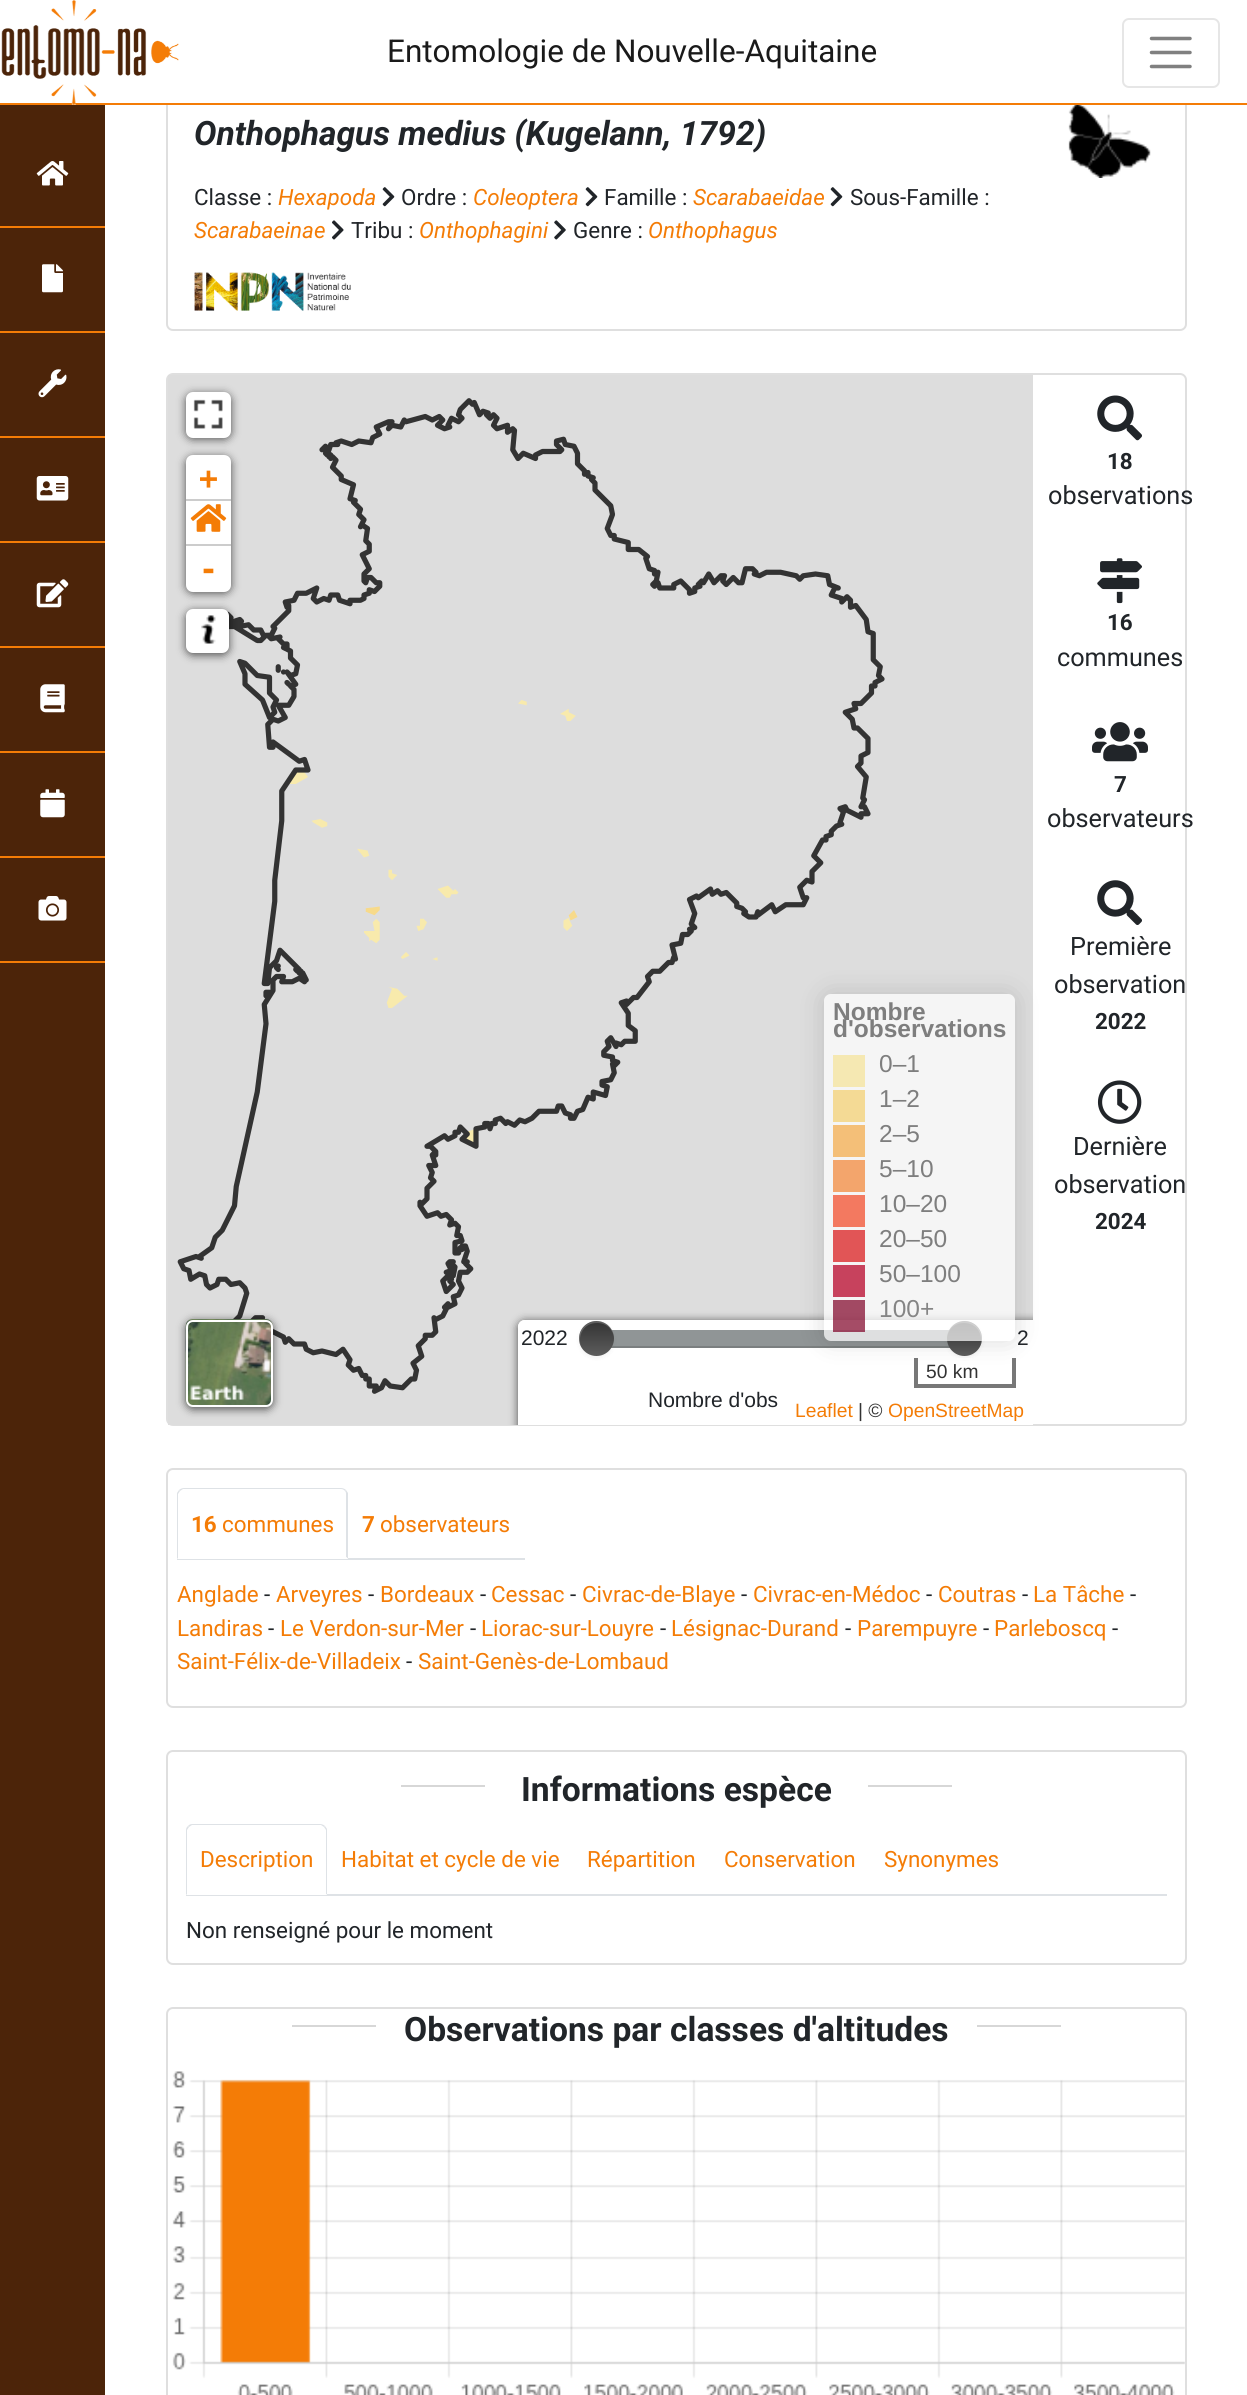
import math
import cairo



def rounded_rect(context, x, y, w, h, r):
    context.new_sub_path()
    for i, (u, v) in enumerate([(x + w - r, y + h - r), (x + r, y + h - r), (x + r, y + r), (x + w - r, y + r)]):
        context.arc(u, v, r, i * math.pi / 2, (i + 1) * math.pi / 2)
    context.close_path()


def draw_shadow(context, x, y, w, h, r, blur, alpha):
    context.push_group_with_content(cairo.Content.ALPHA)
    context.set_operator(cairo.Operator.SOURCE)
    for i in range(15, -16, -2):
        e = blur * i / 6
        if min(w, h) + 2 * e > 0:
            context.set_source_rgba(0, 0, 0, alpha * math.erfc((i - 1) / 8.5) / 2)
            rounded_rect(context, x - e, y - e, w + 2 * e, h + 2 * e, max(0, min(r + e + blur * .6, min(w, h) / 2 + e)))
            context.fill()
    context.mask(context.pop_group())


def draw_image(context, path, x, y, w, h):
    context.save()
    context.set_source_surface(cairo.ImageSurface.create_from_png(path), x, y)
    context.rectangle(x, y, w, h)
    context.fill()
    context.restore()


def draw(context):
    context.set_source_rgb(1, 1, 1)
    context.paint()
    rounded_rect(context, 167, 96, 1019, 234, 6)
    context.set_source_rgb(223 / 255, 223 / 255, 223 / 255)
    context.stroke()
    context.set_source_rgb(1, 1, 1)
    context.rectangle(166, 95, 1021, 8)
    context.fill()
    context.set_source_rgb(244 / 255, 124 / 255, 6 / 255)
    context.rectangle(0, 103, 1247, 2)
    context.fill()
    draw_image(context, "images/1.png", 1, 0, 178, 105)
    rounded_rect(context, 1123, 19, 96, 68, 6)
    context.set_source_rgb(230 / 255, 230 / 255, 230 / 255)
    context.stroke()
    context.new_path()
    context.move_to(1151.5, 38.5)
    context.line_to(1190, 38.5)
    context.move_to(1151.5, 52.5)
    context.line_to(1190, 52.5)
    context.move_to(1151.5, 66.5)
    context.line_to(1190, 66.5)
    context.set_source_rgb(128 / 255, 128 / 255, 128 / 255)
    context.set_line_width(3.5)
    context.set_line_cap(cairo.LineCap.ROUND)
    context.stroke()
    context.set_source_rgb(76 / 255, 36 / 255, 9 / 255)
    context.rectangle(0, 105, 105, 2290)
    context.fill()
    context.set_source_rgb(244 / 255, 124 / 255, 6 / 255)
    context.rectangle(0, 226, 105, 2)
    context.fill()
    draw_image(context, "images/2.png", 36, 161, 33, 25)
    context.rectangle(0, 331, 105, 2)
    context.fill()
    draw_image(context, "images/3.png", 42, 264, 21, 29)
    context.rectangle(0, 436, 105, 2)
    context.fill()
    draw_image(context, "images/4.png", 38, 369, 29, 29)
    context.rectangle(0, 541, 105, 2)
    context.fill()
    draw_image(context, "images/5.png", 36, 476, 33, 25)
    context.rectangle(0, 646, 105, 2)
    context.fill()
    draw_image(context, "images/6.png", 36, 579, 33, 29)
    context.rectangle(0, 751, 105, 2)
    context.fill()
    draw_image(context, "images/7.png", 40, 684, 25, 29)
    context.rectangle(0, 856, 105, 2)
    context.fill()
    draw_image(context, "images/8.png", 40, 789, 25, 29)
    context.rectangle(0, 961, 105, 2)
    context.fill()
    draw_image(context, "images/9.png", 38, 896, 29, 25)
    draw_image(context, "images/10.png", 382, 187, 13, 20)
    draw_image(context, "images/10.png", 585, 187, 13, 20)
    draw_image(context, "images/10.png", 830, 187, 13, 20)
    draw_image(context, "images/11.png", 332, 220, 12, 20)
    draw_image(context, "images/12.png", 554, 220, 12, 20)
    draw_image(context, "images/13.png", 194, 272, 157, 39)
    draw_image(context, "images/14.png", 1068, 105, 83, 73)
    rounded_rect(context, 167, 374, 1019, 1051, 6)
    context.set_source_rgb(223 / 255, 223 / 255, 223 / 255)
    context.set_line_width(2)
    context.set_line_cap(cairo.LineCap.BUTT)
    context.stroke()
    context.set_source_rgb(221 / 255, 221 / 255, 221 / 255)
    context.rectangle(168, 375, 865, 1050)
    context.fill()
    draw_image(context, "images/15.png", 177, 398, 708, 996)
    context.set_source_rgb(0, 0, 0)
    draw_shadow(context, 186, 394, 45, 45, 7, 4.5, 0.65)
    context.set_source_rgb(1, 1, 1)
    rounded_rect(context, 186, 392, 45, 46, 7)
    context.fill()
    draw_image(context, "images/16.png", 193, 399, 30, 30)
    context.set_source_rgb(0, 0, 0)
    draw_shadow(context, 186, 457, 45, 136, 7, 4.5, 0.65)
    context.set_source_rgb(1, 1, 1)
    context.new_path()
    context.move_to(193, 455)
    context.line_to(224, 455)
    context.curve_to(228, 455, 231, 458, 231, 462)
    context.line_to(231, 501)
    context.line_to(186, 501)
    context.line_to(186, 462)
    context.curve_to(186, 458, 189, 455, 193, 455)
    context.close_path()
    context.fill()
    context.set_source_rgb(204 / 255, 204 / 255, 204 / 255)
    context.rectangle(186, 499, 45, 2)
    context.fill()
    context.set_source_rgb(1, 1, 1)
    context.rectangle(186, 501, 45, 43)
    context.fill()
    context.set_source_rgb(204 / 255, 204 / 255, 204 / 255)
    context.rectangle(186, 544, 45, 2)
    context.fill()
    draw_image(context, "images/17.png", 190, 504, 37, 28)
    context.set_source_rgb(1, 1, 1)
    context.new_path()
    context.move_to(186, 546)
    context.line_to(231, 546)
    context.line_to(231, 585)
    context.curve_to(231, 589, 228, 592, 224, 592)
    context.line_to(193, 592)
    context.curve_to(189, 592, 186, 589, 186, 585)
    context.close_path()
    context.fill()
    context.set_source_rgb(0, 0, 0)
    draw_shadow(context, 186, 611, 43, 44, 7, 4.5, 0.65)
    context.set_source_rgb(1, 1, 1)
    rounded_rect(context, 187, 610, 41, 42, 6)
    context.fill_preserve()
    context.stroke()
    draw_image(context, "images/18.png", 201, 615, 15, 29)
    context.save()
    context.rectangle(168, 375, 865, 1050)
    context.clip()
    context.set_source_rgb(0, 0, 0)
    draw_shadow(context, 518, 1321, 525, 123, 7, 4.5, 0.65)
    context.restore()
    context.new_path()
    context.move_to(525, 1320)
    context.line_to(1033, 1320)
    context.line_to(1033, 1425)
    context.line_to(518, 1425)
    context.line_to(518, 1327)
    context.curve_to(518, 1323, 521, 1320, 525, 1320)
    context.close_path()
    context.fill()
    context.save()
    context.rectangle(168, 375, 865, 1050)
    context.clip()
    rounded_rect(context, 519, 1321, 523, 120, 6)
    context.stroke()
    context.restore()
    context.set_source_rgb(144 / 255, 149 / 255, 150 / 255)
    context.rectangle(611, 1330, 339, 18)
    context.fill()
    context.set_source_rgba(0, 0, 0, 0.15)
    context.new_path()
    context.move_to(597, 1339)
    context.line_to(597, 1341)
    context.curve_to(597, 1345, 600, 1348, 604, 1348)
    context.line_to(957, 1348)
    context.curve_to(961, 1348, 964, 1345, 964, 1341)
    context.line_to(964, 1339)
    context.curve_to(964, 1343, 961, 1346, 957, 1346)
    context.line_to(604, 1346)
    context.curve_to(600, 1346, 597, 1343, 597, 1339)
    context.close_path()
    context.fill()
    context.set_source_rgb(0, 0, 0)
    draw_shadow(context, 947, 1323, 35, 35, 17.5, 2, 0.05)
    gradient = cairo.LinearGradient(964, 1321, 964, 1356)
    gradient.add_color_stop_rgba(0, 51 / 255, 51 / 255, 51 / 255, 1)
    gradient.add_color_stop_rgba(1, 93 / 255, 93 / 255, 93 / 255, 1)
    context.set_source(gradient)
    context.arc(964.5, 1338.5, 17.5, 0, 2 * math.pi)
    context.fill()
    context.set_source_rgba(1, 1, 1, 0.2)
    context.new_path()
    context.move_to(964, 1323)
    context.curve_to(977.5, 1323, 983, 1335, 980.5, 1345)
    context.curve_to(987.5, 1328.5, 966.5, 1313, 952.5, 1325.5)
    context.curve_to(949.5, 1328.5, 947.5, 1332.5, 947, 1337)
    context.curve_to(948.5, 1329.5, 954, 1323, 964, 1323)
    context.close_path()
    context.fill()
    context.save()
    context.set_fill_rule(cairo.FillRule.EVEN_ODD)
    context.new_path()
    context.move_to(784, 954)
    context.line_to(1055, 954)
    context.line_to(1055, 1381)
    context.line_to(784, 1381)
    context.close_path()
    context.move_to(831, 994)
    context.line_to(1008, 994)
    context.curve_to(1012, 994, 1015, 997, 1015, 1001)
    context.line_to(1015, 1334)
    context.curve_to(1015, 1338, 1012, 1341, 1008, 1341)
    context.line_to(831, 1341)
    context.curve_to(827, 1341, 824, 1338, 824, 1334)
    context.line_to(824, 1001)
    context.curve_to(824, 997, 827, 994, 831, 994)
    context.close_path()
    context.clip()
    context.set_source_rgb(0, 0, 0)
    draw_shadow(context, 824, 994, 191, 347, 7, 13, 0.14)
    context.restore()
    context.set_source_rgba(1, 1, 1, 0.7)
    rounded_rect(context, 824, 994, 191, 347, 7)
    context.fill()
    context.set_source_rgb(245 / 255, 232 / 255, 178 / 255)
    context.rectangle(833, 1055, 32, 32)
    context.fill()
    context.set_source_rgb(244 / 255, 218 / 255, 149 / 255)
    context.rectangle(833, 1090, 32, 32)
    context.fill()
    context.set_source_rgb(244 / 255, 191 / 255, 120 / 255)
    context.rectangle(833, 1125, 32, 32)
    context.fill()
    context.set_source_rgb(243 / 255, 165 / 255, 108 / 255)
    context.rectangle(833, 1160, 32, 32)
    context.fill()
    context.set_source_rgb(243 / 255, 121 / 255, 96 / 255)
    context.rectangle(833, 1195, 32, 32)
    context.fill()
    context.set_source_rgb(225 / 255, 85 / 255, 86 / 255)
    context.rectangle(833, 1230, 32, 32)
    context.fill()
    context.set_source_rgb(199 / 255, 66 / 255, 93 / 255)
    context.rectangle(833, 1265, 32, 32)
    context.fill()
    context.set_source_rgba(128 / 255, 0, 38 / 255, 0.7)
    context.rectangle(833, 1300, 32, 32)
    context.fill()
    context.set_source_rgba(1, 1, 1, 0.5)
    context.rectangle(957, 1358, 15, 2)
    context.fill()
    context.set_source_rgb(119 / 255, 119 / 255, 119 / 255)
    context.rectangle(1012, 1358, 4, 30)
    context.fill()
    context.rectangle(914, 1384, 101, 4)
    context.fill()
    context.rectangle(914, 1358, 4, 30)
    context.fill()
    context.set_source_rgb(0, 0, 0)
    draw_shadow(context, 186, 1321, 87, 88, 7, 4.5, 0.65)
    draw_image(context, "images/19.png", 185, 1319, 88, 88)
    rounded_rect(context, 187, 1321, 85, 85, 6)
    context.set_source_rgb(1, 1, 1)
    context.stroke()
    context.set_source_rgb(0, 0, 0)
    draw_shadow(context, 579, 1323, 35, 35, 17.5, 2, 0.05)
    gradient = cairo.LinearGradient(597, 1321, 597, 1356)
    gradient.add_color_stop_rgba(0, 51 / 255, 51 / 255, 51 / 255, 1)
    gradient.add_color_stop_rgba(1, 93 / 255, 93 / 255, 93 / 255, 1)
    context.set_source(gradient)
    context.arc(596.5, 1338.5, 17.5, 0, 2 * math.pi)
    context.fill()
    context.set_source_rgba(1, 1, 1, 0.2)
    context.new_path()
    context.move_to(597, 1323)
    context.curve_to(607, 1323, 612.5, 1329.5, 614, 1337)
    context.curve_to(613.5, 1332.5, 611.5, 1328.5, 608.5, 1325.5)
    context.curve_to(594.5, 1313, 573.5, 1328.5, 580.5, 1345)
    context.curve_to(578, 1335, 583.5, 1323, 597, 1323)
    context.close_path()
    context.fill()
    draw_image(context, "images/20.png", 1097, 395, 45, 46)
    draw_image(context, "images/21.png", 1097, 558, 45, 46)
    draw_image(context, "images/22.png", 1092, 722, 56, 40)
    draw_image(context, "images/23.png", 1097, 880, 45, 45)
    draw_image(context, "images/24.png", 1097, 1080, 45, 44)
    rounded_rect(context, 167, 1469, 1019, 238, 6)
    context.set_source_rgb(223 / 255, 223 / 255, 223 / 255)
    context.stroke()
    context.set_source_rgb(222 / 255, 226 / 255, 230 / 255)
    context.rectangle(177, 1558, 348, 2)
    context.fill()
    context.set_source_rgb(1, 1, 1)
    context.new_path()
    context.move_to(184, 1488)
    context.line_to(341, 1488)
    context.curve_to(345, 1488, 348, 1491, 348, 1495)
    context.line_to(348, 1559)
    context.line_to(177, 1559)
    context.line_to(177, 1495)
    context.curve_to(177, 1491, 180, 1488, 184, 1488)
    context.close_path()
    context.fill()
    context.set_source_rgb(222 / 255, 226 / 255, 230 / 255)
    context.new_path()
    context.move_to(184, 1488)
    context.curve_to(182, 1488, 180, 1489, 179, 1490)
    context.line_to(180, 1491)
    context.line_to(183, 1489)
    context.line_to(341, 1489)
    context.curve_to(343, 1489, 344, 1490, 345, 1491)
    context.line_to(346, 1490)
    context.curve_to(345, 1489, 343, 1488, 341, 1488)
    context.close_path()
    context.fill()
    context.new_path()
    context.move_to(348, 1559)
    context.line_to(348, 1493)
    context.line_to(346, 1490)
    context.line_to(345, 1491)
    context.curve_to(346, 1492, 346, 1493, 346, 1494)
    context.line_to(346, 1557)
    context.close_path()
    context.fill()
    context.set_source_rgb(1, 1, 1)
    context.new_path()
    context.move_to(348, 1559)
    context.line_to(346, 1557)
    context.line_to(346, 1558)
    context.line_to(178, 1558)
    context.line_to(177, 1559)
    context.close_path()
    context.fill()
    context.set_source_rgb(222 / 255, 226 / 255, 230 / 255)
    context.new_path()
    context.move_to(179, 1490)
    context.line_to(177, 1493)
    context.line_to(177, 1559)
    context.line_to(178, 1558)
    context.line_to(178, 1494)
    context.line_to(180, 1491)
    context.close_path()
    context.fill()
    rounded_rect(context, 167, 1751, 1019, 213, 6)
    context.set_source_rgb(223 / 255, 223 / 255, 223 / 255)
    context.stroke()
    context.set_source_rgb(215 / 255, 215 / 255, 215 / 255)
    context.rectangle(401, 1785, 84, 2)
    context.fill()
    context.rectangle(868, 1785, 84, 2)
    context.fill()
    context.set_source_rgb(222 / 255, 226 / 255, 230 / 255)
    context.rectangle(186, 1894, 981, 2)
    context.fill()
    context.set_source_rgb(1, 1, 1)
    context.new_path()
    context.move_to(193, 1824)
    context.line_to(320, 1824)
    context.curve_to(324, 1824, 327, 1827, 327, 1831)
    context.line_to(327, 1895)
    context.line_to(186, 1895)
    context.line_to(186, 1831)
    context.curve_to(186, 1827, 189, 1824, 193, 1824)
    context.close_path()
    context.fill()
    context.set_source_rgb(222 / 255, 226 / 255, 230 / 255)
    context.new_path()
    context.move_to(192, 1824)
    context.curve_to(190, 1824, 189, 1825, 188, 1826)
    context.line_to(189, 1827)
    context.line_to(192, 1825)
    context.line_to(321, 1825)
    context.line_to(324, 1827)
    context.line_to(325, 1826)
    context.curve_to(324, 1825, 322, 1824, 320, 1824)
    context.close_path()
    context.fill()
    context.new_path()
    context.move_to(327, 1895)
    context.line_to(327, 1829)
    context.line_to(325, 1826)
    context.line_to(324, 1827)
    context.line_to(326, 1830)
    context.line_to(326, 1894)
    context.close_path()
    context.fill()
    context.set_source_rgb(1, 1, 1)
    context.new_path()
    context.move_to(327, 1895)
    context.line_to(326, 1894)
    context.line_to(187, 1894)
    context.line_to(186, 1895)
    context.close_path()
    context.fill()
    context.set_source_rgb(222 / 255, 226 / 255, 230 / 255)
    context.new_path()
    context.move_to(188, 1826)
    context.curve_to(187, 1827, 186, 1828, 186, 1830)
    context.line_to(186, 1895)
    context.line_to(187, 1894)
    context.line_to(187, 1830)
    context.line_to(189, 1827)
    context.close_path()
    context.fill()
    rounded_rect(context, 167, 2008, 1019, 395, 6)
    context.set_source_rgb(223 / 255, 223 / 255, 223 / 255)
    context.stroke()
    context.set_source_rgb(215 / 255, 215 / 255, 215 / 255)
    context.rectangle(292, 2025, 84, 2)
    context.fill()
    context.rectangle(977, 2025, 84, 2)
    context.fill()
    draw_image(context, "images/25.png", 172, 2071, 1013, 324)
    context.select_font_face("Roboto")
    context.set_font_size(31.5)
    context.set_source_rgb(26 / 255, 26 / 255, 26 / 255)
    context.move_to(387, 62)
    context.show_text("Entomologie de Nouvelle-Aquitaine")
    context.select_font_face("Roboto", cairo.FontSlant.ITALIC, cairo.FontWeight.BOLD)
    context.set_font_size(33.6)
    context.set_source_rgb(33 / 255, 37 / 255, 41 / 255)
    context.move_to(194, 145)
    context.show_text("Onthophagus medius (Kugelann, 1792)")
    context.select_font_face("Roboto")
    context.set_font_size(22.4)
    context.move_to(194, 205)
    context.show_text("Classe :")
    context.select_font_face("Roboto", cairo.FontSlant.ITALIC)
    context.set_source_rgb(244 / 255, 124 / 255, 6 / 255)
    context.move_to(278, 205)
    context.show_text("Hexapoda")
    context.select_font_face("Roboto")
    context.set_source_rgb(33 / 255, 37 / 255, 41 / 255)
    context.move_to(401, 205)
    context.show_text("Ordre :")
    context.select_font_face("Roboto", cairo.FontSlant.ITALIC)
    context.set_source_rgb(244 / 255, 124 / 255, 6 / 255)
    context.move_to(473, 205)
    context.show_text("Coleoptera")
    context.select_font_face("Roboto")
    context.set_source_rgb(33 / 255, 37 / 255, 41 / 255)
    context.move_to(604, 205)
    context.show_text("Famille :")
    context.select_font_face("Roboto", cairo.FontSlant.ITALIC)
    context.set_source_rgb(244 / 255, 124 / 255, 6 / 255)
    context.move_to(693, 205)
    context.show_text("Scarabaeidae")
    context.select_font_face("Roboto")
    context.set_source_rgb(33 / 255, 37 / 255, 41 / 255)
    context.move_to(850, 205)
    context.show_text("Sous-Famille :")
    context.select_font_face("Roboto", cairo.FontSlant.ITALIC)
    context.set_source_rgb(244 / 255, 124 / 255, 6 / 255)
    context.move_to(194, 238)
    context.show_text("Scarabaeinae")
    context.select_font_face("Roboto")
    context.set_source_rgb(33 / 255, 37 / 255, 41 / 255)
    context.move_to(351, 238)
    context.show_text("Tribu :")
    context.select_font_face("Roboto", cairo.FontSlant.ITALIC)
    context.set_source_rgb(244 / 255, 124 / 255, 6 / 255)
    context.move_to(419, 238)
    context.show_text("Onthophagini")
    context.select_font_face("Roboto")
    context.set_source_rgb(33 / 255, 37 / 255, 41 / 255)
    context.move_to(573, 238)
    context.show_text("Genre :")
    context.select_font_face("Roboto", cairo.FontSlant.ITALIC)
    context.set_source_rgb(244 / 255, 124 / 255, 6 / 255)
    context.move_to(648, 238)
    context.show_text("Onthophagus")
    context.select_font_face("DejaVu Sans Mono", cairo.FontSlant.NORMAL, cairo.FontWeight.BOLD)
    context.set_font_size(31.5)
    context.move_to(199, 489)
    context.show_text("+")
    context.move_to(199, 580)
    context.show_text("-")
    context.select_font_face("Liberation Sans", cairo.FontSlant.NORMAL, cairo.FontWeight.BOLD)
    context.set_font_size(24.5)
    context.set_source_rgb(126 / 255, 126 / 255, 126 / 255)
    context.move_to(833, 1020)
    context.show_text("Nombre")
    context.move_to(833, 1037)
    context.show_text("d'observations")
    context.select_font_face("Liberation Sans")
    context.move_to(879, 1072)
    context.show_text("0–1")
    context.move_to(879, 1107)
    context.show_text("1–2")
    context.move_to(879, 1142)
    context.show_text("2–5")
    context.move_to(879, 1177)
    context.show_text("5–10")
    context.move_to(879, 1212)
    context.show_text("10–20")
    context.move_to(879, 1247)
    context.show_text("20–50")
    context.move_to(879, 1282)
    context.show_text("50–100")
    context.set_source_rgb(133 / 255, 133 / 255, 133 / 255)
    context.move_to(879, 1317)
    context.show_text("100+")
    context.set_font_size(19.25)
    context.set_source_rgb(51 / 255, 51 / 255, 51 / 255)
    context.move_to(926, 1378)
    context.show_text("50 km")
    context.set_source_rgb(244 / 255, 124 / 255, 6 / 255)
    context.move_to(795, 1417)
    context.show_text("Leaflet")
    context.set_source_rgb(51 / 255, 51 / 255, 51 / 255)
    context.move_to(858, 1417)
    context.show_text("| ©")
    context.set_source_rgb(244 / 255, 124 / 255, 6 / 255)
    context.move_to(888, 1417)
    context.show_text("OpenStreetMap")
    context.set_font_size(21)
    context.set_source_rgb(33 / 255, 37 / 255, 41 / 255)
    context.move_to(521, 1345)
    context.show_text("2022")
    context.move_to(1017, 1345)
    context.show_text("2")
    context.move_to(648, 1407)
    context.show_text("Nombre d'obs")
    context.select_font_face("Roboto", cairo.FontSlant.NORMAL, cairo.FontWeight.BOLD)
    context.set_font_size(22.4)
    context.move_to(1107, 469)
    context.show_text("18")
    context.select_font_face("Roboto")
    context.set_font_size(25.25)
    context.move_to(1048, 504)
    context.show_text("observations")
    context.select_font_face("Roboto", cairo.FontSlant.NORMAL, cairo.FontWeight.BOLD)
    context.set_font_size(22.4)
    context.move_to(1107, 630)
    context.show_text("16")
    context.select_font_face("Roboto")
    context.set_font_size(25.25)
    context.move_to(1057, 666)
    context.show_text("communes")
    context.select_font_face("Roboto", cairo.FontSlant.NORMAL, cairo.FontWeight.BOLD)
    context.set_font_size(22.4)
    context.move_to(1114, 792)
    context.show_text("7")
    context.select_font_face("Roboto")
    context.set_font_size(25.25)
    context.move_to(1047, 827)
    context.show_text("observateurs")
    context.move_to(1070, 955)
    context.show_text("Première")
    context.move_to(1054, 993)
    context.show_text("observation")
    context.select_font_face("Roboto", cairo.FontSlant.NORMAL, cairo.FontWeight.BOLD)
    context.set_font_size(22.4)
    context.move_to(1095, 1029)
    context.show_text("2022")
    context.select_font_face("Roboto")
    context.set_font_size(25.25)
    context.move_to(1073, 1155)
    context.show_text("Dernière")
    context.move_to(1054, 1193)
    context.show_text("observation")
    context.select_font_face("Roboto", cairo.FontSlant.NORMAL, cairo.FontWeight.BOLD)
    context.set_font_size(22.4)
    context.move_to(1095, 1229)
    context.show_text("2024")
    context.set_source_rgb(244 / 255, 124 / 255, 6 / 255)
    context.move_to(191, 1532)
    context.show_text("16")
    context.select_font_face("Roboto")
    context.move_to(222, 1532)
    context.show_text("communes")
    context.select_font_face("Roboto", cairo.FontSlant.NORMAL, cairo.FontWeight.BOLD)
    context.move_to(362, 1532)
    context.show_text("7")
    context.select_font_face("Roboto")
    context.move_to(380, 1532)
    context.show_text("observateurs")
    context.move_to(177, 1602)
    context.show_text("Anglade")
    context.set_source_rgb(33 / 255, 37 / 255, 41 / 255)
    context.move_to(264, 1602)
    context.show_text("-")
    context.set_source_rgb(244 / 255, 124 / 255, 6 / 255)
    context.move_to(276, 1602)
    context.show_text("Arveyres")
    context.set_source_rgb(33 / 255, 37 / 255, 41 / 255)
    context.move_to(368, 1602)
    context.show_text("-")
    context.set_source_rgb(244 / 255, 124 / 255, 6 / 255)
    context.move_to(380, 1602)
    context.show_text("Bordeaux")
    context.set_source_rgb(33 / 255, 37 / 255, 41 / 255)
    context.move_to(480, 1602)
    context.show_text("-")
    context.set_source_rgb(244 / 255, 124 / 255, 6 / 255)
    context.move_to(491, 1602)
    context.show_text("Cessac")
    context.set_source_rgb(33 / 255, 37 / 255, 41 / 255)
    context.move_to(570, 1602)
    context.show_text("-")
    context.set_source_rgb(244 / 255, 124 / 255, 6 / 255)
    context.move_to(582, 1602)
    context.show_text("Civrac-de-Blaye")
    context.set_source_rgb(33 / 255, 37 / 255, 41 / 255)
    context.move_to(741, 1602)
    context.show_text("-")
    context.set_source_rgb(244 / 255, 124 / 255, 6 / 255)
    context.move_to(753, 1602)
    context.show_text("Civrac-en-Médoc")
    context.set_source_rgb(33 / 255, 37 / 255, 41 / 255)
    context.move_to(926, 1602)
    context.show_text("-")
    context.set_source_rgb(244 / 255, 124 / 255, 6 / 255)
    context.move_to(938, 1602)
    context.show_text("Coutras")
    context.set_source_rgb(33 / 255, 37 / 255, 41 / 255)
    context.move_to(1022, 1602)
    context.show_text("-")
    context.set_source_rgb(244 / 255, 124 / 255, 6 / 255)
    context.move_to(1033, 1602)
    context.show_text("La Tâche")
    context.set_source_rgb(33 / 255, 37 / 255, 41 / 255)
    context.move_to(1130, 1602)
    context.show_text("-")
    context.set_source_rgb(244 / 255, 124 / 255, 6 / 255)
    context.move_to(177, 1636)
    context.show_text("Landiras")
    context.set_source_rgb(33 / 255, 37 / 255, 41 / 255)
    context.move_to(268, 1636)
    context.show_text("-")
    context.set_source_rgb(244 / 255, 124 / 255, 6 / 255)
    context.move_to(280, 1636)
    context.show_text("Le Verdon-sur-Mer")
    context.set_source_rgb(33 / 255, 37 / 255, 41 / 255)
    context.move_to(470, 1636)
    context.show_text("-")
    context.set_source_rgb(244 / 255, 124 / 255, 6 / 255)
    context.move_to(481, 1636)
    context.show_text("Liorac-sur-Louyre")
    context.set_source_rgb(33 / 255, 37 / 255, 41 / 255)
    context.move_to(660, 1636)
    context.show_text("-")
    context.set_source_rgb(244 / 255, 124 / 255, 6 / 255)
    context.move_to(671, 1636)
    context.show_text("Lésignac-Durand")
    context.set_source_rgb(33 / 255, 37 / 255, 41 / 255)
    context.move_to(845, 1636)
    context.show_text("-")
    context.set_source_rgb(244 / 255, 124 / 255, 6 / 255)
    context.move_to(857, 1636)
    context.show_text("Parempuyre")
    context.set_source_rgb(33 / 255, 37 / 255, 41 / 255)
    context.move_to(983, 1636)
    context.show_text("-")
    context.set_source_rgb(244 / 255, 124 / 255, 6 / 255)
    context.move_to(994, 1636)
    context.show_text("Parleboscq")
    context.set_source_rgb(33 / 255, 37 / 255, 41 / 255)
    context.move_to(1112, 1636)
    context.show_text("-")
    context.set_source_rgb(244 / 255, 124 / 255, 6 / 255)
    context.move_to(177, 1669)
    context.show_text("Saint-Félix-de-Villadeix")
    context.set_source_rgb(33 / 255, 37 / 255, 41 / 255)
    context.move_to(406, 1669)
    context.show_text("-")
    context.set_source_rgb(244 / 255, 124 / 255, 6 / 255)
    context.move_to(418, 1669)
    context.show_text("Saint-Genès-de-Lombaud")
    context.select_font_face("Roboto", cairo.FontSlant.NORMAL, cairo.FontWeight.BOLD)
    context.set_font_size(33.6)
    context.set_source_rgb(33 / 255, 37 / 255, 41 / 255)
    context.move_to(521, 1801)
    context.show_text("Informations espèce")
    context.select_font_face("Roboto")
    context.set_font_size(22.4)
    context.set_source_rgb(244 / 255, 124 / 255, 6 / 255)
    context.move_to(200, 1867)
    context.show_text("Description")
    context.move_to(341, 1867)
    context.show_text("Habitat et cycle de vie")
    context.move_to(587, 1867)
    context.show_text("Répartition")
    context.move_to(724, 1867)
    context.show_text("Conservation")
    context.move_to(884, 1867)
    context.show_text("Synonymes")
    context.set_source_rgb(33 / 255, 37 / 255, 41 / 255)
    context.move_to(186, 1938)
    context.show_text("Non renseigné pour le moment")
    context.select_font_face("Roboto", cairo.FontSlant.NORMAL, cairo.FontWeight.BOLD)
    context.set_font_size(33.6)
    context.move_to(404, 2041)
    context.show_text("Observations par classes d'altitudes")


surface = cairo.ImageSurface(cairo.Format.RGB24, 1247, 2395)
context = cairo.Context(surface)
options = cairo.FontOptions()
options.set_hint_metrics(cairo.HintMetrics.OFF)
options.set_hint_style(cairo.HintStyle.NONE)
context.set_font_options(options)
context.set_miter_limit(4)
draw(context)
surface.write_to_png("out.png")
